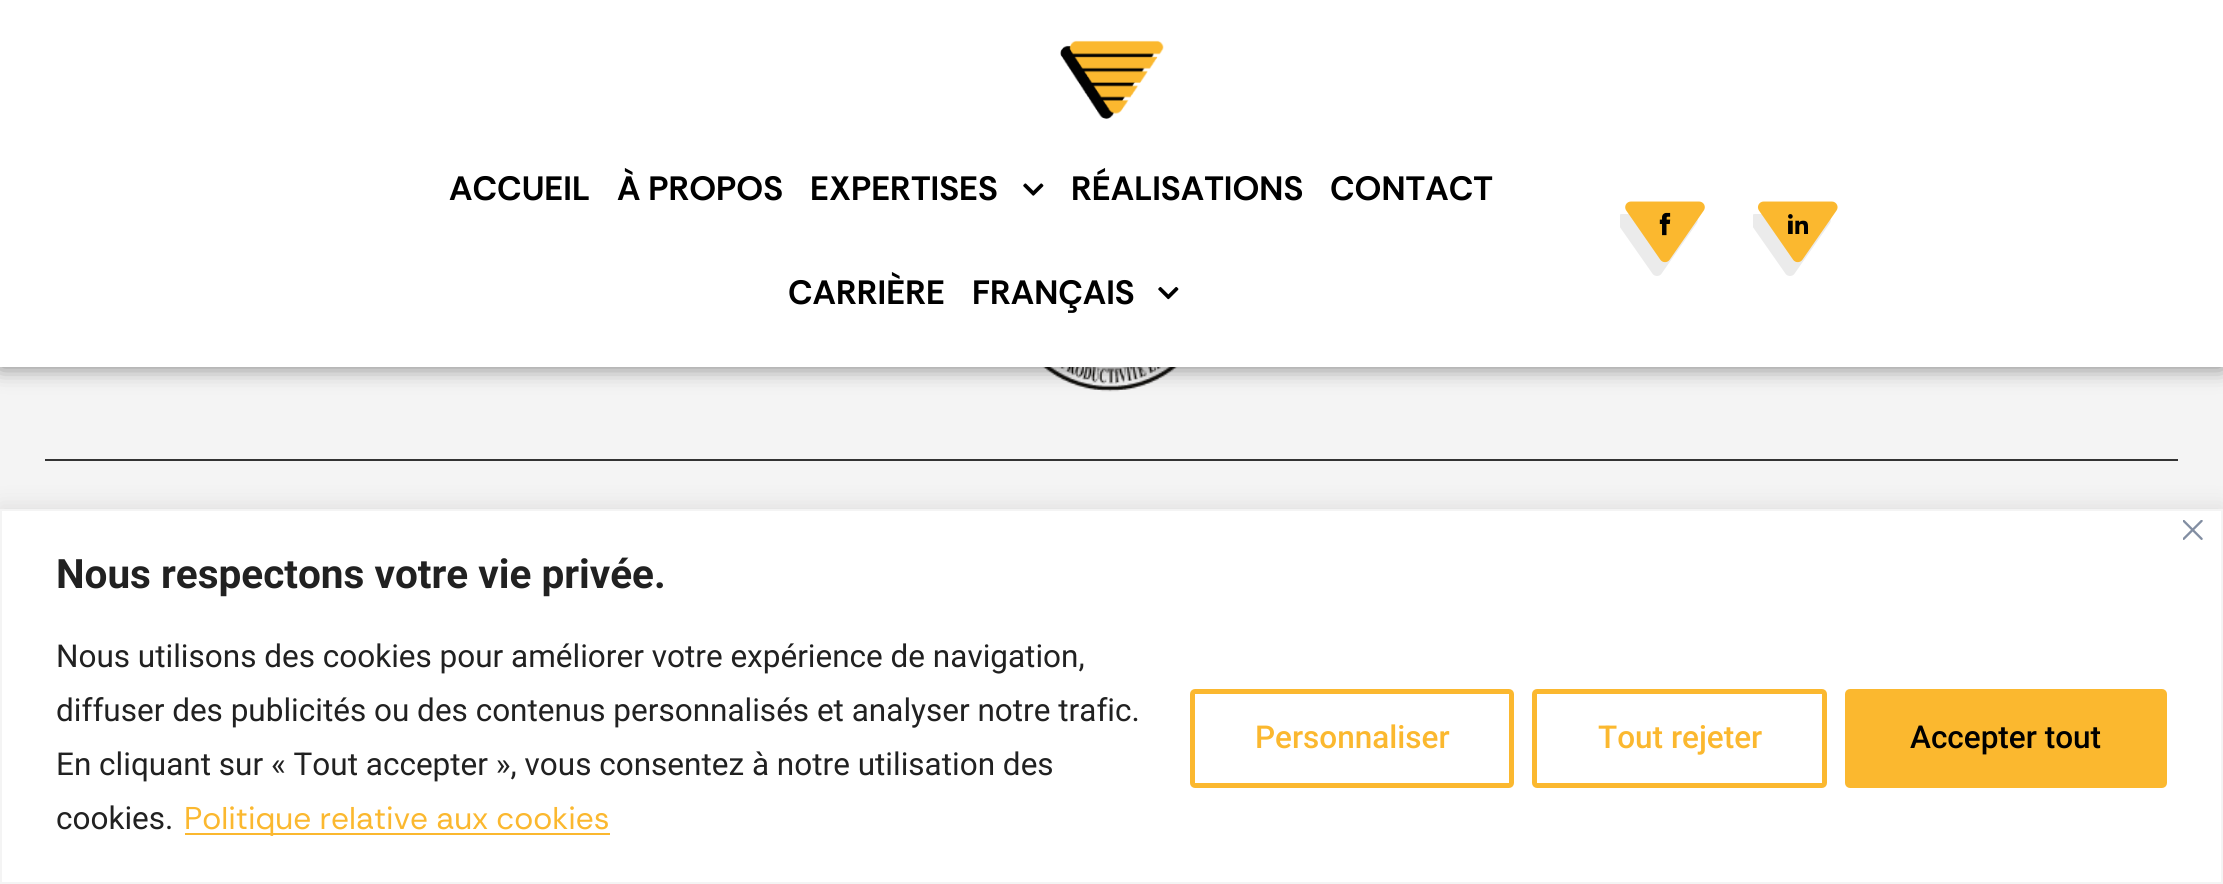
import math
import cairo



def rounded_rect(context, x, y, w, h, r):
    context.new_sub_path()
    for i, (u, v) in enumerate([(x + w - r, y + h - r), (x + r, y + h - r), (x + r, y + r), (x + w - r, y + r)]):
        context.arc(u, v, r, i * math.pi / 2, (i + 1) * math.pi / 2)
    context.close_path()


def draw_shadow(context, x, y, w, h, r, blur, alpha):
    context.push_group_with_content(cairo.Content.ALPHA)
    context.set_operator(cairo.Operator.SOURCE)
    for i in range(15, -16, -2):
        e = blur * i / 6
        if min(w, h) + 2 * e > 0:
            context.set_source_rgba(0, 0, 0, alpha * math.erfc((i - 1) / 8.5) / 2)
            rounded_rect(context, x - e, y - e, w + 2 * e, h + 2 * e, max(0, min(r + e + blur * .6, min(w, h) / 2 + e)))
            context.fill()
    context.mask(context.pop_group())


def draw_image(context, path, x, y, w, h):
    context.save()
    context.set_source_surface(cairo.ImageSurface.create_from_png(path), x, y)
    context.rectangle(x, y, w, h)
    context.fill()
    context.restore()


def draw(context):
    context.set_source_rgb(244 / 255, 244 / 255, 244 / 255)
    context.paint()
    draw_image(context, "images/6.png", 1042, 367, 136, 25)
    context.set_source_rgb(0, 0, 0)
    draw_shadow(context, 0, 0, 2223, 367, 0, 11, 0.5)
    context.set_source_rgb(1, 1, 1)
    context.rectangle(0, 0, 2223, 367)
    context.fill()
    draw_image(context, "images/1.png", 1060, 40, 104, 79)
    draw_image(context, "images/2.png", 1023, 183, 21, 13)
    draw_image(context, "images/3.png", 1158, 287, 21, 13)
    context.save()
    context.rectangle(1620, 214, 83, 65)
    context.clip()
    context.set_source_rgb(235 / 255, 235 / 255, 235 / 255)
    context.new_path()
    context.move_to(1662, 273)
    context.curve_to(1661, 275, 1659, 276, 1657, 276)
    context.curve_to(1655, 276, 1653, 275, 1652, 273)
    context.line_to(1617, 223)
    context.curve_to(1616, 221, 1616, 219, 1617, 217)
    context.curve_to(1618, 215, 1620, 214, 1622, 214)
    context.line_to(1692, 214)
    context.curve_to(1694, 214, 1696, 215, 1697, 217)
    context.curve_to(1698, 219, 1698, 221, 1697, 223)
    context.close_path()
    context.fill()
    context.restore()
    draw_image(context, "images/4.png", 1625, 201, 80, 62)
    context.save()
    context.rectangle(1753, 214, 83, 65)
    context.clip()
    context.set_source_rgb(235 / 255, 235 / 255, 235 / 255)
    context.new_path()
    context.move_to(1795, 273)
    context.curve_to(1794, 275, 1792, 276, 1790, 276)
    context.curve_to(1788, 276, 1786, 275, 1785, 273)
    context.line_to(1750, 223)
    context.curve_to(1749, 221, 1749, 219, 1750, 217)
    context.curve_to(1751, 215, 1753, 214, 1755, 214)
    context.line_to(1825, 214)
    context.curve_to(1827, 214, 1829, 215, 1830, 217)
    context.curve_to(1831, 219, 1831, 221, 1830, 223)
    context.close_path()
    context.fill()
    context.restore()
    draw_image(context, "images/5.png", 1757, 201, 81, 62)
    context.set_source_rgb(51 / 255, 51 / 255, 51 / 255)
    context.rectangle(45, 459, 2133, 2)
    context.fill()
    context.set_source_rgb(172 / 255, 171 / 255, 171 / 255)
    draw_shadow(context, 0, 506, 2223, 376, 0, 11, 0.3)
    context.set_source_rgb(1, 1, 1)
    context.rectangle(1, 510, 2221, 373)
    context.fill_preserve()
    context.set_source_rgb(244 / 255, 244 / 255, 244 / 255)
    context.stroke()
    draw_image(context, "images/7.png", 2183, 520, 20, 20)
    context.set_source_rgb(251 / 255, 184 / 255, 47 / 255)
    context.rectangle(185, 833, 425, 2)
    context.fill()
    rounded_rect(context, 1192.5, 691.5, 319, 94, 2.5)
    context.set_line_width(5)
    context.stroke()
    rounded_rect(context, 1534.5, 691.5, 290, 94, 2.5)
    context.stroke()
    rounded_rect(context, 1847.5, 691.5, 317, 94, 2.5)
    context.fill_preserve()
    context.stroke()
    context.select_font_face("Rethink Sans", cairo.FontSlant.NORMAL, cairo.FontWeight.BOLD)
    context.set_font_size(33.75)
    context.set_source_rgb(0, 0, 0)
    context.move_to(449, 200)
    context.show_text("ACCUEIL")
    context.move_to(617, 200)
    context.show_text("À PROPOS")
    context.move_to(810, 200)
    context.show_text("EXPERTISES")
    context.move_to(1071, 200)
    context.show_text("RÉALISATIONS")
    context.move_to(1330, 200)
    context.show_text("CONTACT")
    context.move_to(788, 304)
    context.show_text("CARRIÈRE")
    context.move_to(972, 304)
    context.show_text("FRANÇAIS")
    context.select_font_face("Roboto", cairo.FontSlant.NORMAL, cairo.FontWeight.BOLD)
    context.set_font_size(40.5)
    context.set_source_rgb(33 / 255, 33 / 255, 33 / 255)
    context.move_to(56, 588)
    context.show_text("Nous respectons votre vie privée.")
    context.select_font_face("Roboto")
    context.set_font_size(31.5)
    context.move_to(56, 667)
    context.show_text("Nous utilisons des cookies pour améliorer votre expérience de navigation,")
    context.move_to(56, 721)
    context.show_text("diffuser des publicités ou des contenus personnalisés et analyser notre trafic.")
    context.move_to(56, 775)
    context.show_text("En cliquant sur « Tout accepter », vous consentez à notre utilisation des")
    context.move_to(56, 829)
    context.show_text("cookies.")
    context.select_font_face("Rethink Sans")
    context.set_source_rgb(251 / 255, 184 / 255, 47 / 255)
    context.move_to(184, 829)
    context.show_text("Politique relative aux cookies")
    context.select_font_face("Roboto Medium")
    context.move_to(1255, 748)
    context.show_text("Personnaliser")
    context.move_to(1598, 748)
    context.show_text("Tout rejeter")
    context.set_source_rgb(0, 0, 0)
    context.move_to(1910, 748)
    context.show_text("Accepter tout")


surface = cairo.ImageSurface(cairo.Format.RGB24, 2223, 884)
context = cairo.Context(surface)
options = cairo.FontOptions()
options.set_hint_metrics(cairo.HintMetrics.OFF)
options.set_hint_style(cairo.HintStyle.NONE)
context.set_font_options(options)
context.set_miter_limit(4)
draw(context)
surface.write_to_png("out.png")
